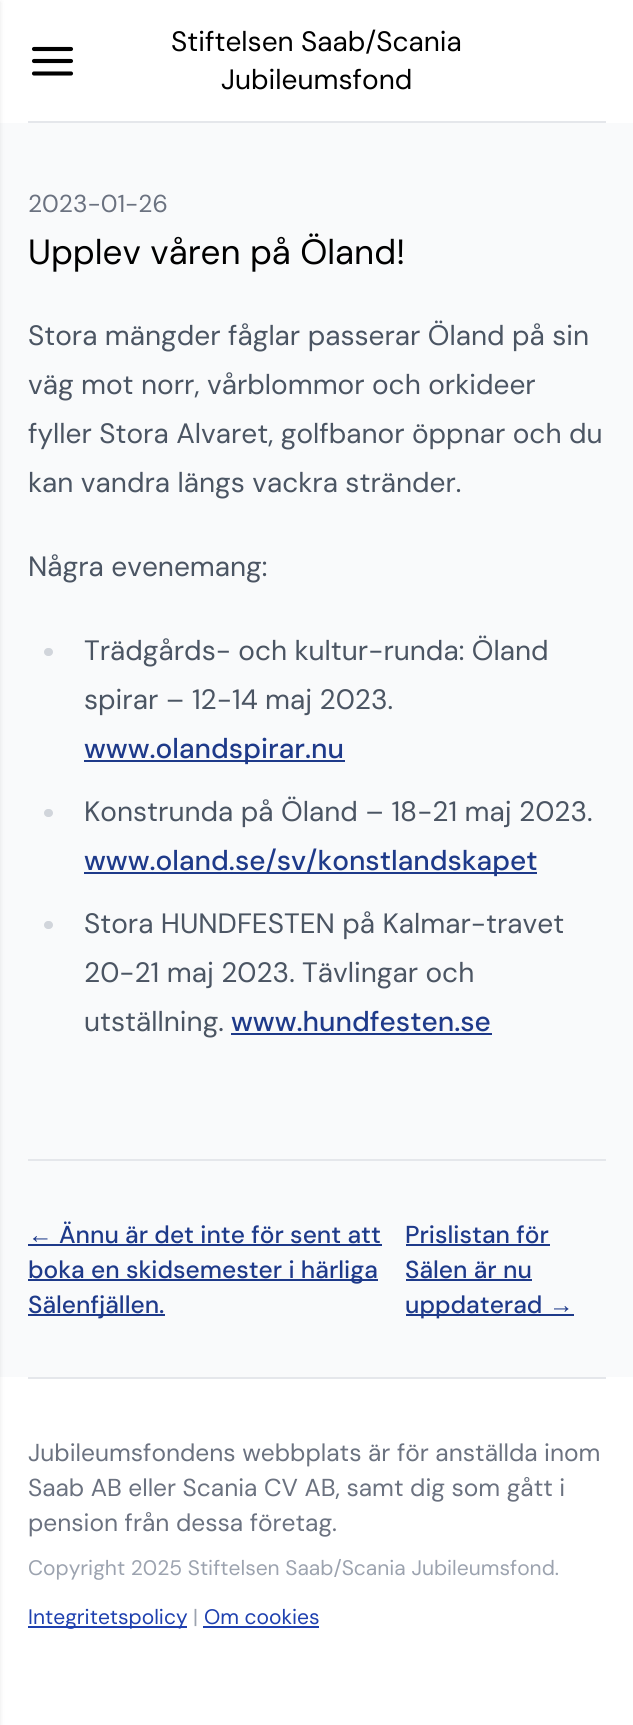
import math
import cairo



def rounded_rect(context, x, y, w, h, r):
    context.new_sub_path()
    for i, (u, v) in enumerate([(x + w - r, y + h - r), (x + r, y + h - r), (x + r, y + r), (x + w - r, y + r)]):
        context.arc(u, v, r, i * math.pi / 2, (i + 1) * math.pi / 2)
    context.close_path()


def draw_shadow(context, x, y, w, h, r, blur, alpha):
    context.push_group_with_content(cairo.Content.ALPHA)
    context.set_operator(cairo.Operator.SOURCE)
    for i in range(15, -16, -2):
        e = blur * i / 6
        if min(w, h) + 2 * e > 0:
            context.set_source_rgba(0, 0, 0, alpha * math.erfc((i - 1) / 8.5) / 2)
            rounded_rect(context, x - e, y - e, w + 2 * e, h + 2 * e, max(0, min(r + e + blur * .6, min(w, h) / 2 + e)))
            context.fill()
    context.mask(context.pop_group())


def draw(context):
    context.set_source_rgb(1, 1, 1)
    context.paint()
    context.set_source_rgb(249 / 255, 250 / 255, 251 / 255)
    context.rectangle(0, 123, 633, 1254)
    context.fill()
    context.set_source_rgb(0, 0, 0)
    draw_shadow(context, -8, 2, 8, 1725, 0, 2.5, 0.1)
    context.set_source_rgb(229 / 255, 231 / 255, 235 / 255)
    context.rectangle(28, 121, 578, 2)
    context.fill()
    context.new_path()
    context.move_to(34, 61)
    context.line_to(71, 61)
    context.move_to(34, 49)
    context.line_to(71, 49)
    context.move_to(34, 73.5)
    context.line_to(71, 73.5)
    context.set_source_rgb(0, 0, 0)
    context.set_line_width(4.1)
    context.set_line_cap(cairo.LineCap.ROUND)
    context.set_line_join(cairo.LineJoin.ROUND)
    context.stroke()
    context.set_source_rgb(209 / 255, 213 / 255, 219 / 255)
    rounded_rect(context, 44, 648, 9, 8, 4)
    context.fill()
    context.set_source_rgb(30 / 255, 58 / 255, 138 / 255)
    context.rectangle(84, 760, 261, 2)
    context.fill()
    context.set_source_rgb(209 / 255, 213 / 255, 219 / 255)
    rounded_rect(context, 44, 809, 9, 8, 4)
    context.fill()
    context.set_source_rgb(30 / 255, 58 / 255, 138 / 255)
    context.rectangle(84, 872, 453, 2)
    context.fill()
    context.set_source_rgb(209 / 255, 213 / 255, 219 / 255)
    rounded_rect(context, 44, 921, 9, 8, 4)
    context.fill()
    context.set_source_rgb(30 / 255, 58 / 255, 138 / 255)
    context.rectangle(231, 1033, 261, 2)
    context.fill()
    context.set_source_rgb(229 / 255, 231 / 255, 235 / 255)
    context.rectangle(28, 1159, 578, 2)
    context.fill()
    context.set_source_rgb(30 / 255, 58 / 255, 138 / 255)
    context.rectangle(28, 1244, 354, 2)
    context.fill()
    context.rectangle(28, 1279, 350, 2)
    context.fill()
    context.rectangle(28, 1314, 137, 2)
    context.fill()
    context.rectangle(406, 1244, 144, 2)
    context.fill()
    context.rectangle(406, 1279, 126, 2)
    context.fill()
    context.rectangle(406, 1314, 168, 2)
    context.fill()
    context.set_source_rgb(229 / 255, 231 / 255, 235 / 255)
    context.rectangle(28, 1377, 578, 2)
    context.fill()
    context.set_source_rgb(30 / 255, 64 / 255, 175 / 255)
    context.rectangle(28, 1626, 159, 2)
    context.fill()
    context.rectangle(203, 1626, 116, 2)
    context.fill()
    context.select_font_face("DM Sans")
    context.set_font_size(28)
    context.set_source_rgb(0, 0, 0)
    context.move_to(171, 51)
    context.show_text("Stiftelsen Saab/Scania")
    context.move_to(221, 89)
    context.show_text("Jubileumsfond")
    context.set_font_size(24.5)
    context.set_source_rgb(107 / 255, 114 / 255, 128 / 255)
    context.move_to(28, 212)
    context.show_text("2023-01-26")
    context.set_font_size(35)
    context.set_source_rgb(0, 0, 0)
    context.move_to(28, 264)
    context.show_text("Upplev våren på Öland!")
    context.set_font_size(28)
    context.set_source_rgb(75 / 255, 85 / 255, 99 / 255)
    context.move_to(28, 345)
    context.show_text("Stora mängder fåglar passerar Öland på sin")
    context.move_to(28, 394)
    context.show_text("väg mot norr, vårblommor och orkideer")
    context.move_to(28, 443)
    context.show_text("fyller Stora Alvaret, golfbanor öppnar och du")
    context.move_to(28, 492)
    context.show_text("kan vandra längs vackra stränder.")
    context.move_to(28, 576)
    context.show_text("Några evenemang:")
    context.move_to(84, 660)
    context.show_text("Trädgårds- och kultur-runda: Öland")
    context.move_to(84, 709)
    context.show_text("spirar – 12-14 maj 2023.")
    context.select_font_face("DM Sans Medium")
    context.set_source_rgb(30 / 255, 58 / 255, 138 / 255)
    context.move_to(84, 758)
    context.show_text("www.olandspirar.nu")
    context.select_font_face("DM Sans")
    context.set_source_rgb(75 / 255, 85 / 255, 99 / 255)
    context.move_to(84, 821)
    context.show_text("Konstrunda på Öland – 18-21 maj 2023.")
    context.select_font_face("DM Sans Medium")
    context.set_source_rgb(30 / 255, 58 / 255, 138 / 255)
    context.move_to(84, 870)
    context.show_text("www.oland.se/sv/konstlandskapet")
    context.select_font_face("DM Sans")
    context.set_source_rgb(75 / 255, 85 / 255, 99 / 255)
    context.move_to(84, 933)
    context.show_text("Stora HUNDFESTEN på Kalmar-travet")
    context.move_to(84, 982)
    context.show_text("20-21 maj 2023. Tävlingar och")
    context.move_to(84, 1031)
    context.show_text("utställning.")
    context.select_font_face("DM Sans Medium")
    context.set_source_rgb(30 / 255, 58 / 255, 138 / 255)
    context.move_to(231, 1031)
    context.show_text("www.hundfesten.se")
    context.select_font_face("Liberation Sans")
    context.set_font_size(24.5)
    context.move_to(28, 1243)
    context.show_text("←")
    context.select_font_face("DM Sans Medium")
    context.move_to(59, 1243)
    context.show_text("Ännu är det inte för sent att")
    context.move_to(28, 1278)
    context.show_text("boka en skidsemester i härliga")
    context.move_to(28, 1313)
    context.show_text("Sälenfjällen.")
    context.move_to(405, 1243)
    context.show_text("Prislistan för")
    context.move_to(405, 1278)
    context.show_text("Sälen är nu")
    context.move_to(405, 1313)
    context.show_text("uppdaterad")
    context.select_font_face("Liberation Sans")
    context.move_to(549, 1313)
    context.show_text("→")
    context.select_font_face("DM Sans")
    context.set_source_rgb(107 / 255, 114 / 255, 128 / 255)
    context.move_to(28, 1461)
    context.show_text("Jubileumsfondens webbplats är för anställda inom")
    context.move_to(28, 1496)
    context.show_text("Saab AB eller Scania CV AB, samt dig som gått i")
    context.move_to(28, 1531)
    context.show_text("pension från dessa företag.")
    context.set_font_size(21)
    context.set_source_rgb(156 / 255, 163 / 255, 175 / 255)
    context.move_to(28, 1575)
    context.show_text("Copyright 2025 Stiftelsen Saab/Scania Jubileumsfond.")
    context.set_source_rgb(30 / 255, 64 / 255, 175 / 255)
    context.move_to(28, 1624)
    context.show_text("Integritetspolicy")
    context.set_source_rgb(156 / 255, 163 / 255, 175 / 255)
    context.move_to(193, 1624)
    context.show_text("|")
    context.set_source_rgb(30 / 255, 64 / 255, 175 / 255)
    context.move_to(204, 1624)
    context.show_text("Om cookies")


surface = cairo.ImageSurface(cairo.Format.RGB24, 633, 1725)
context = cairo.Context(surface)
options = cairo.FontOptions()
options.set_hint_metrics(cairo.HintMetrics.OFF)
options.set_hint_style(cairo.HintStyle.NONE)
context.set_font_options(options)
context.set_miter_limit(4)
draw(context)
surface.write_to_png("out.png")
